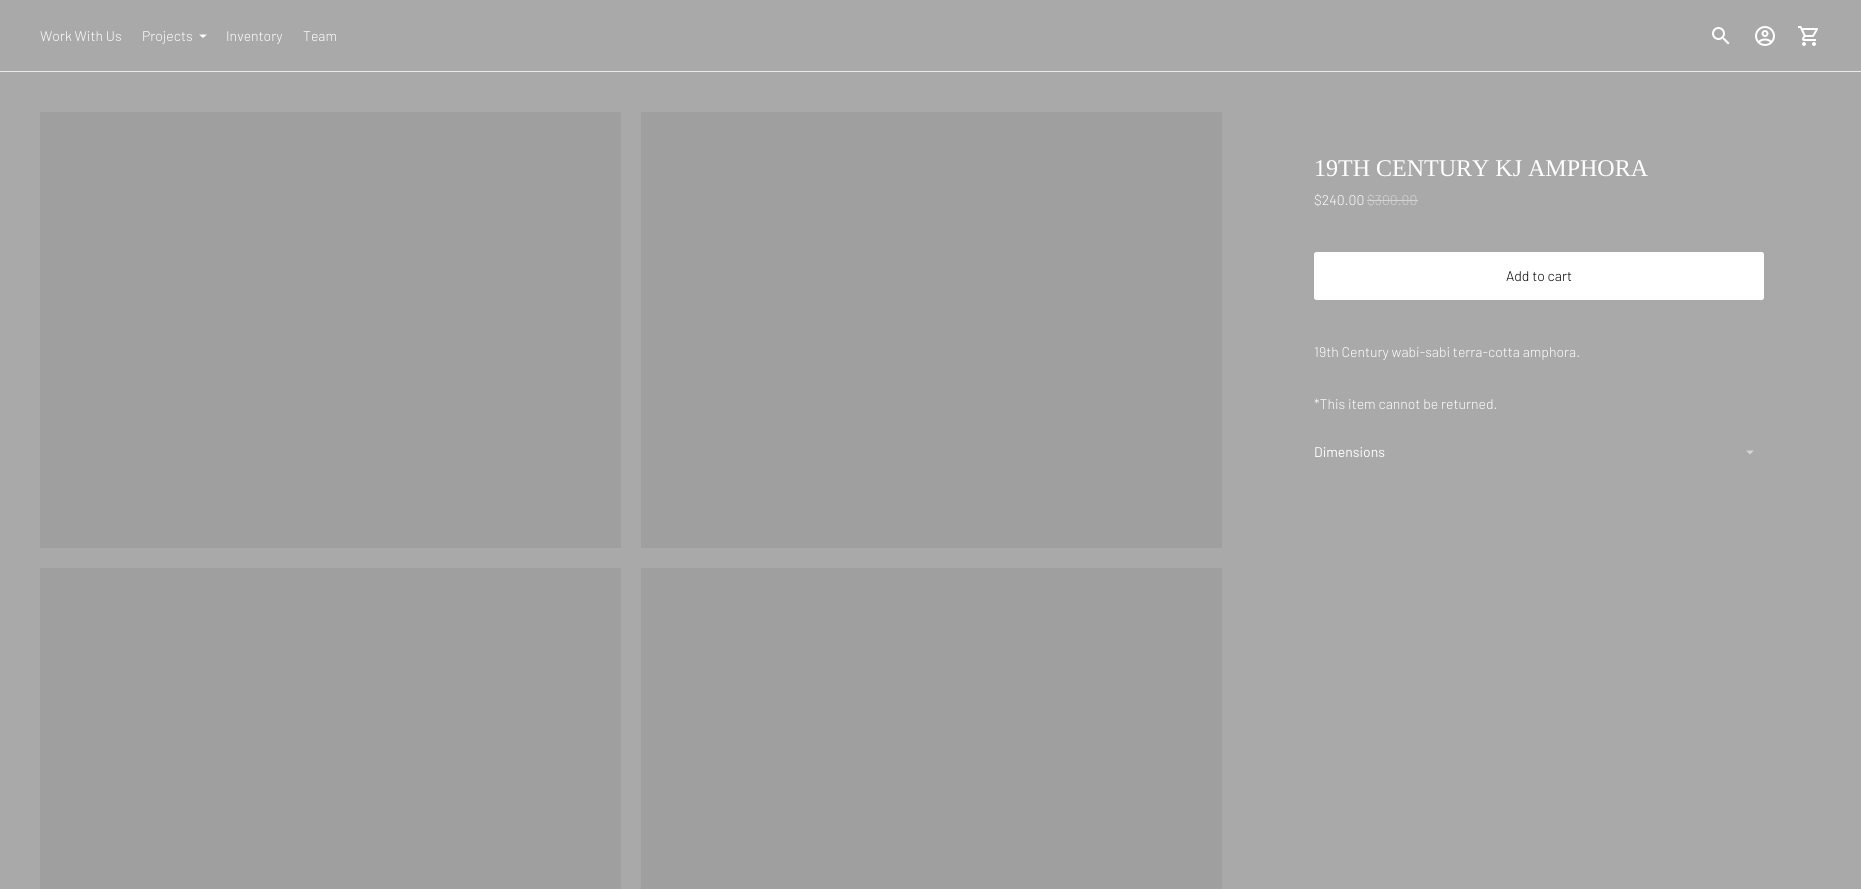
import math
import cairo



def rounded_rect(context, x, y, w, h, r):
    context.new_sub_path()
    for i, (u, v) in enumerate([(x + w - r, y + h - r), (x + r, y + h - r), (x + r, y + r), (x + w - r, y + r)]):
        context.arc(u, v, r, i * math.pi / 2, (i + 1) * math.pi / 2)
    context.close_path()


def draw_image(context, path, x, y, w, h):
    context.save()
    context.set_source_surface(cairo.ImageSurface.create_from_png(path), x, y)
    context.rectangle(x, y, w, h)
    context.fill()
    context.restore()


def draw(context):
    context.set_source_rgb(169 / 255, 169 / 255, 169 / 255)
    context.paint()
    context.set_source_rgb(234 / 255, 234 / 255, 234 / 255)
    context.rectangle(0, 71, 1861, 1)
    context.fill()
    context.set_source_rgb(1, 1, 1)
    context.new_path()
    context.move_to(199, 34.5)
    context.line_to(203, 38)
    context.line_to(207, 34.5)
    context.close_path()
    context.fill()
    draw_image(context, "images/1.png", 1712, 27, 18, 18)
    draw_image(context, "images/2.png", 1755, 26, 20, 20)
    draw_image(context, "images/3.png", 1798, 26, 20, 20)
    context.set_source_rgb(159 / 255, 159 / 255, 159 / 255)
    context.rectangle(40, 112, 581, 436)
    context.fill()
    context.rectangle(641, 112, 581, 436)
    context.fill()
    context.rectangle(40, 568, 581, 321)
    context.fill()
    context.rectangle(641, 568, 581, 321)
    context.fill()
    context.set_source_rgb(212 / 255, 212 / 255, 212 / 255)
    context.rectangle(1367, 200, 51, 1)
    context.fill()
    context.set_source_rgb(1, 1, 1)
    rounded_rect(context, 1314.5, 252.5, 449, 47, 2)
    context.fill_preserve()
    context.set_line_width(1)
    context.stroke()
    context.set_source_rgb(212 / 255, 212 / 255, 212 / 255)
    context.new_path()
    context.move_to(1746, 450.5)
    context.line_to(1750, 454.5)
    context.line_to(1754, 450.5)
    context.close_path()
    context.fill()
    context.select_font_face("Barlow Light")
    context.set_font_size(14)
    context.set_source_rgb(1, 1, 1)
    context.move_to(40, 41)
    context.show_text("Work With Us")
    context.move_to(142, 41)
    context.show_text("Projects")
    context.move_to(226, 41)
    context.show_text("Inventory")
    context.move_to(303, 41)
    context.show_text("Team")
    context.select_font_face("Liberation Serif")
    context.set_font_size(24)
    context.move_to(1314, 176)
    context.show_text("19TH CENTURY KJ AMPHORA")
    context.select_font_face("Barlow Light")
    context.set_font_size(14)
    context.move_to(1314, 205)
    context.show_text("$240.00")
    context.set_source_rgb(212 / 255, 212 / 255, 212 / 255)
    context.move_to(1367, 205)
    context.show_text("$300.00")
    context.set_source_rgb(0, 0, 0)
    context.move_to(1506, 281)
    context.show_text("Add to cart")
    context.set_source_rgb(1, 1, 1)
    context.move_to(1314, 357)
    context.show_text("19th Century wabi-sabi terra-cotta amphora.")
    context.move_to(1314, 409)
    context.show_text("*This item cannot be returned.")
    context.select_font_face("Barlow")
    context.move_to(1314, 457)
    context.show_text("Dimensions")


surface = cairo.ImageSurface(cairo.Format.RGB24, 1861, 889)
context = cairo.Context(surface)
options = cairo.FontOptions()
options.set_hint_metrics(cairo.HintMetrics.OFF)
options.set_hint_style(cairo.HintStyle.NONE)
context.set_font_options(options)
context.set_miter_limit(4)
draw(context)
surface.write_to_png("out.png")
